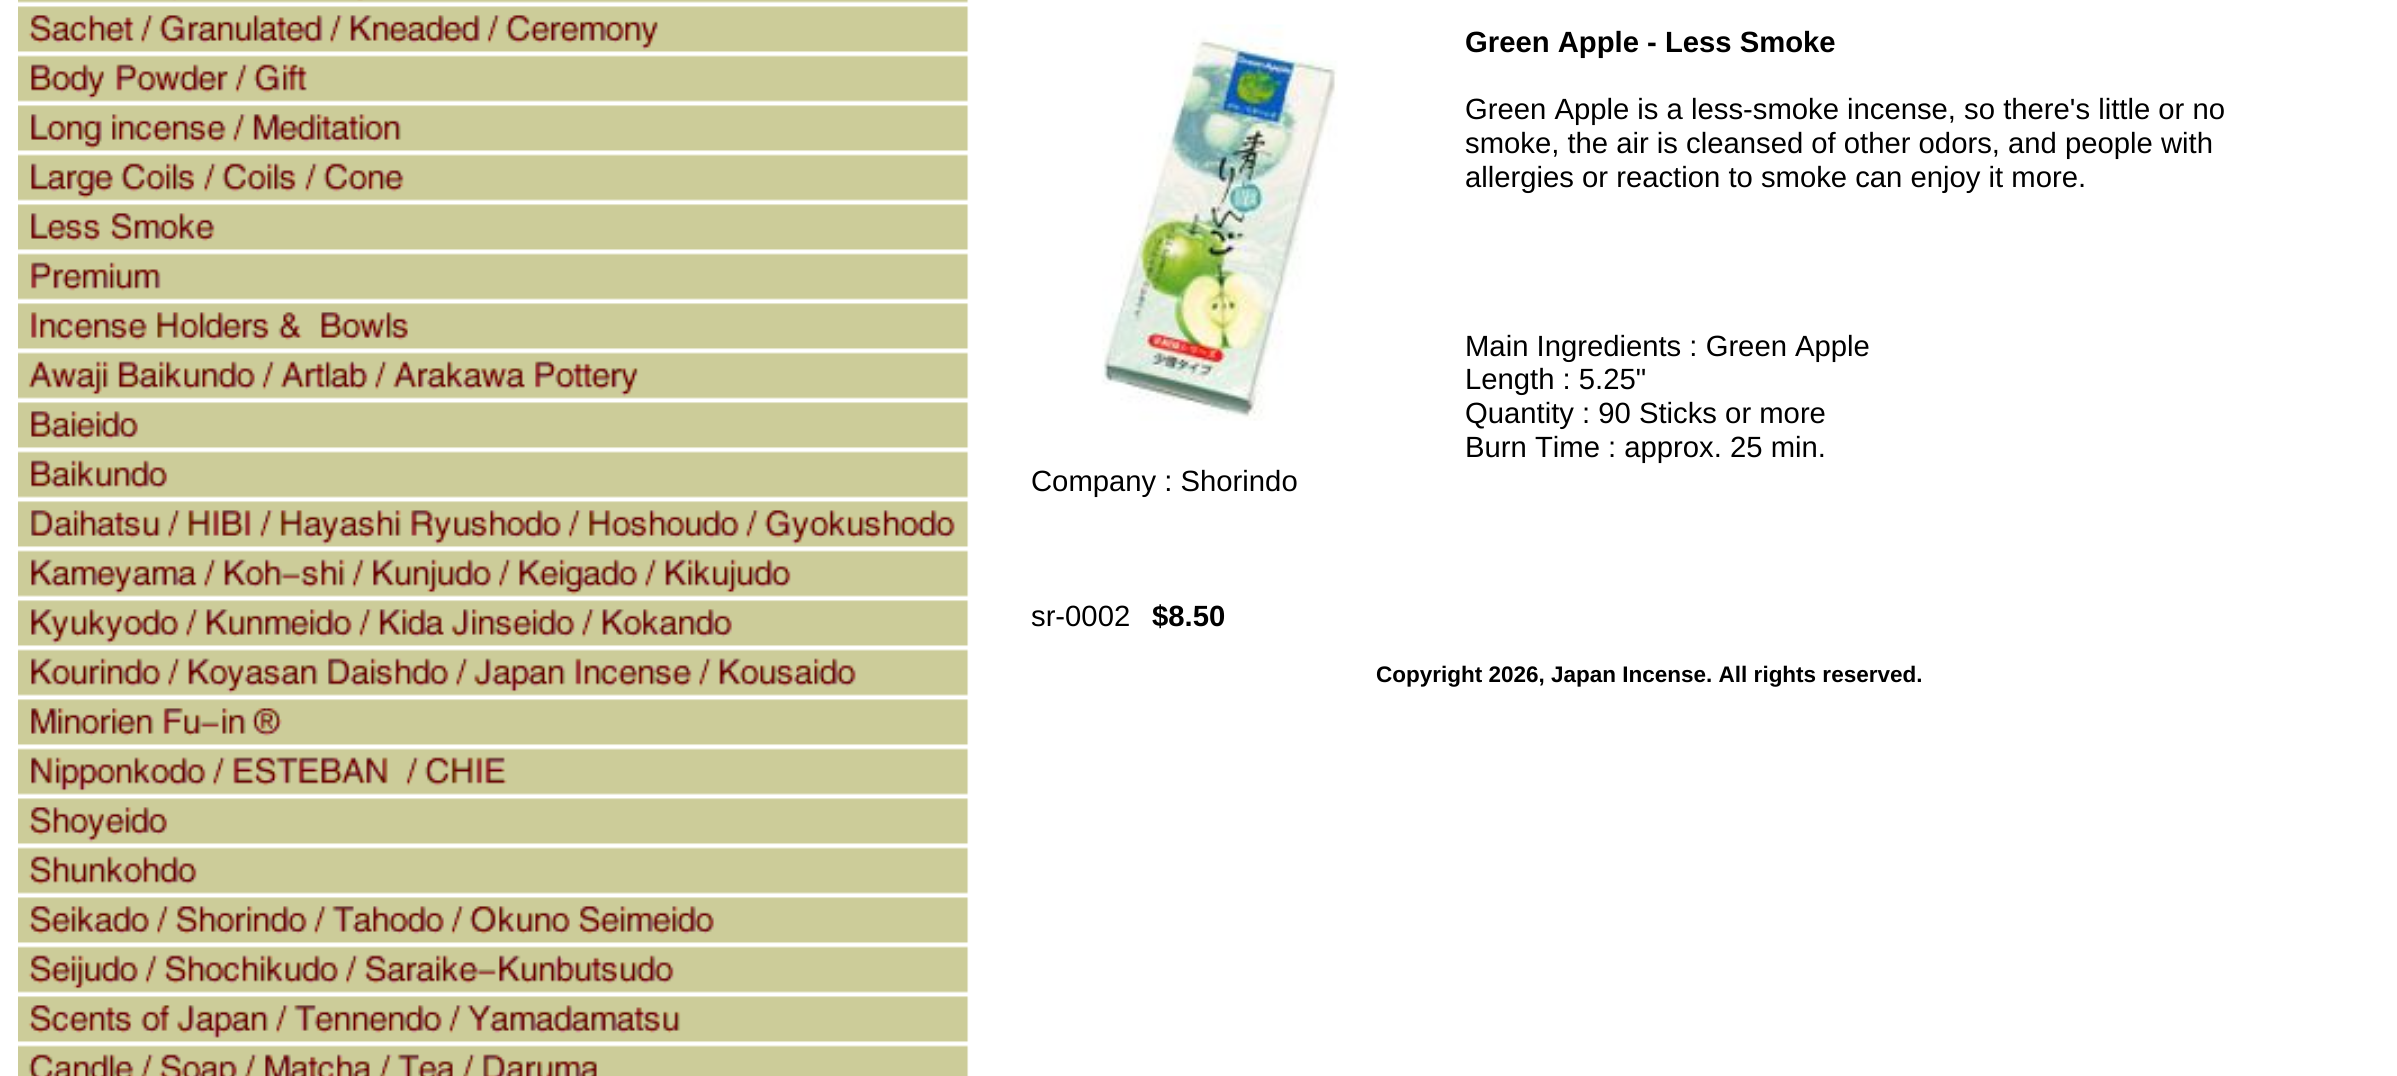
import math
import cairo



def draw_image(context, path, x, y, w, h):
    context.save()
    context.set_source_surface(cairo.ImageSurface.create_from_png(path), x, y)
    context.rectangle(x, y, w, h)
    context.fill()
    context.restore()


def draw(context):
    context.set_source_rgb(1, 1, 1)
    context.paint()
    draw_image(context, "images/1.png", 18, 0, 951, 1076)
    draw_image(context, "images/2.png", 1101, 24, 237, 397)
    context.select_font_face("Liberation Sans", cairo.FontSlant.NORMAL, cairo.FontWeight.BOLD)
    context.set_font_size(29.25)
    context.set_source_rgb(0, 0, 0)
    context.move_to(1465, 52)
    context.show_text("Green Apple - Less Smoke")
    context.select_font_face("Liberation Sans")
    context.move_to(1465, 119)
    context.show_text("Green Apple is a less-smoke incense, so there's little or no")
    context.move_to(1465, 153)
    context.show_text("smoke, the air is cleansed of other odors, and people with")
    context.move_to(1465, 187)
    context.show_text("allergies or reaction to smoke can enjoy it more.")
    context.move_to(1465, 356)
    context.show_text("Main Ingredients : Green Apple")
    context.move_to(1465, 389)
    context.show_text("Length : 5.25\"")
    context.move_to(1465, 423)
    context.show_text("Quantity : 90 Sticks or more")
    context.move_to(1465, 457)
    context.show_text("Burn Time : approx. 25 min.")
    context.move_to(1031, 491)
    context.show_text("Company : Shorindo")
    context.move_to(1031, 626)
    context.show_text("sr-0002")
    context.select_font_face("Liberation Sans", cairo.FontSlant.NORMAL, cairo.FontWeight.BOLD)
    context.move_to(1152, 626)
    context.show_text("$8.50")
    context.set_font_size(22.5)
    context.move_to(1376, 682)
    context.show_text("Copyright 2026, Japan Incense. All rights reserved.")


surface = cairo.ImageSurface(cairo.Format.RGB24, 2397, 1076)
context = cairo.Context(surface)
options = cairo.FontOptions()
options.set_hint_metrics(cairo.HintMetrics.OFF)
options.set_hint_style(cairo.HintStyle.NONE)
context.set_font_options(options)
context.set_miter_limit(4)
draw(context)
surface.write_to_png("out.png")
